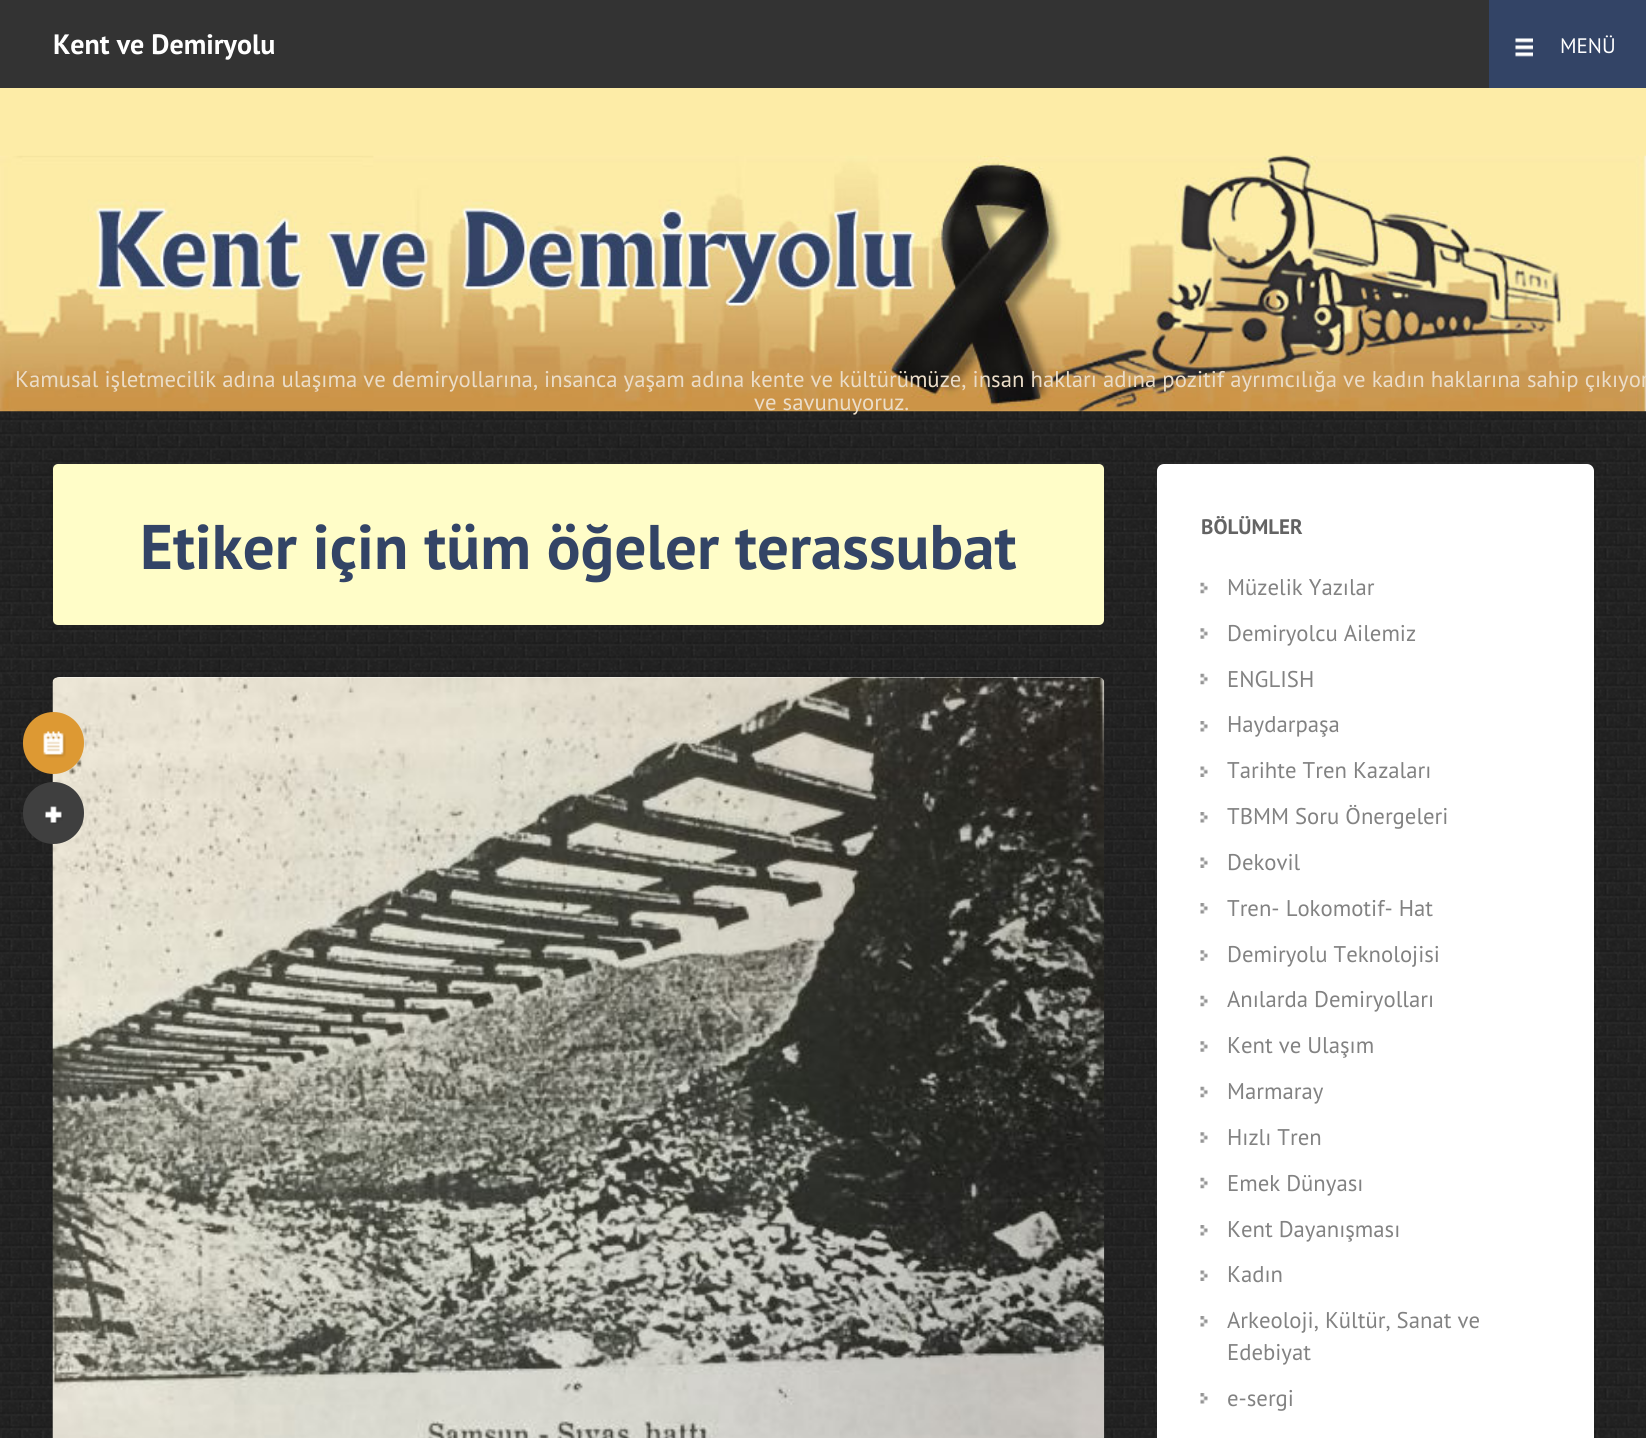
import math
import cairo



def rounded_rect(context, x, y, w, h, r):
    context.new_sub_path()
    for i, (u, v) in enumerate([(x + w - r, y + h - r), (x + r, y + h - r), (x + r, y + r), (x + w - r, y + r)]):
        context.arc(u, v, r, i * math.pi / 2, (i + 1) * math.pi / 2)
    context.close_path()


def draw_image(context, path, x, y, w, h):
    context.save()
    context.set_source_surface(cairo.ImageSurface.create_from_png(path), x, y)
    context.rectangle(x, y, w, h)
    context.fill()
    context.restore()


def draw(context):
    context.set_source_rgb(1, 1, 1)
    context.paint()
    draw_image(context, "images/1.png", 0, 411, 1646, 1027)
    context.set_source_rgb(51 / 255, 51 / 255, 51 / 255)
    context.rectangle(0, 0, 1489, 88)
    context.fill()
    context.set_source_rgb(51 / 255, 68 / 255, 102 / 255)
    context.rectangle(1489, 0, 157, 88)
    context.fill()
    draw_image(context, "images/2.png", 1515, 38, 18, 19)
    context.set_source_rgb(253 / 255, 236 / 255, 167 / 255)
    context.rectangle(0, 88, 1646, 68)
    context.fill()
    draw_image(context, "images/3.png", 0, 155, 1646, 257)
    context.set_source_rgb(1, 253 / 255, 200 / 255)
    rounded_rect(context, 53, 464, 1051, 161, 5)
    context.fill()
    context.set_source_rgb(1, 1, 1)
    rounded_rect(context, 53, 677, 1051, 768, 7)
    context.fill()
    draw_image(context, "images/4.png", 52, 677, 1053, 761)
    context.set_source_rgb(221 / 255, 153 / 255, 51 / 255)
    rounded_rect(context, 23, 712, 61, 62, 30.5)
    context.fill()
    draw_image(context, "images/5.png", 43, 731, 23, 27)
    context.set_source_rgb(63 / 255, 63 / 255, 63 / 255)
    rounded_rect(context, 23, 782, 61, 62, 30.5)
    context.fill()
    draw_image(context, "images/6.png", 45, 806, 18, 18)
    context.set_source_rgb(1, 1, 1)
    rounded_rect(context, 1157, 464, 437, 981, 7)
    context.fill()
    draw_image(context, "images/7.png", 1200, 582, 8, 12)
    draw_image(context, "images/8.png", 1200, 628, 8, 11)
    draw_image(context, "images/7.png", 1200, 673, 8, 12)
    draw_image(context, "images/9.png", 1200, 721, 8, 11)
    draw_image(context, "images/10.png", 1200, 766, 8, 11)
    draw_image(context, "images/9.png", 1200, 812, 8, 11)
    draw_image(context, "images/10.png", 1200, 857, 8, 11)
    draw_image(context, "images/9.png", 1200, 903, 8, 11)
    draw_image(context, "images/8.png", 1200, 950, 8, 11)
    draw_image(context, "images/7.png", 1200, 995, 8, 12)
    draw_image(context, "images/8.png", 1200, 1041, 8, 11)
    draw_image(context, "images/7.png", 1200, 1086, 8, 12)
    draw_image(context, "images/8.png", 1200, 1132, 8, 11)
    draw_image(context, "images/7.png", 1200, 1177, 8, 12)
    draw_image(context, "images/9.png", 1200, 1225, 8, 11)
    draw_image(context, "images/10.png", 1200, 1270, 8, 11)
    draw_image(context, "images/9.png", 1200, 1316, 8, 11)
    draw_image(context, "images/9.png", 1200, 1393, 8, 11)
    context.select_font_face("PT Sans", cairo.FontSlant.NORMAL, cairo.FontWeight.BOLD)
    context.set_font_size(28)
    context.move_to(53, 54)
    context.show_text("Kent ve Demiryolu")
    context.select_font_face("PT Sans")
    context.set_font_size(21)
    context.move_to(1560, 53)
    context.show_text("MENÜ")
    context.set_font_size(22.75)
    context.set_source_rgb(235 / 255, 221 / 255, 201 / 255)
    context.move_to(15, 387)
    context.show_text("Kamusal işletmecilik adına ulaşıma ve demiryollarına, insanca yaşam adına kente ve kültürümüze, insan hakları adına pozitif ayrımcılığa ve kadın haklarına sahip çıkıyor")
    context.move_to(754, 410)
    context.show_text("ve savunuyoruz.")
    context.select_font_face("PT Sans", cairo.FontSlant.NORMAL, cairo.FontWeight.BOLD)
    context.set_font_size(63)
    context.set_source_rgb(51 / 255, 68 / 255, 102 / 255)
    context.move_to(140, 569)
    context.show_text("Etiker için tüm öğeler terassubat")
    context.set_font_size(21)
    context.set_source_rgb(99 / 255, 99 / 255, 99 / 255)
    context.move_to(1201, 534)
    context.show_text("BÖLÜMLER")
    context.select_font_face("PT Sans")
    context.set_font_size(22.75)
    context.set_source_rgb(130 / 255, 130 / 255, 130 / 255)
    context.move_to(1227, 595)
    context.show_text("Müzelik Yazılar")
    context.move_to(1227, 641)
    context.show_text("Demiryolcu Ailemiz")
    context.move_to(1227, 687)
    context.show_text("ENGLISH")
    context.move_to(1227, 732)
    context.show_text("Haydarpaşa")
    context.move_to(1227, 778)
    context.show_text("Tarihte Tren Kazaları")
    context.move_to(1227, 824)
    context.show_text("TBMM Soru Önergeleri")
    context.move_to(1227, 870)
    context.show_text("Dekovil")
    context.move_to(1227, 916)
    context.show_text("Tren- Lokomotif- Hat")
    context.move_to(1227, 962)
    context.show_text("Demiryolu Teknolojisi")
    context.move_to(1227, 1007)
    context.show_text("Anılarda Demiryolları")
    context.move_to(1227, 1053)
    context.show_text("Kent ve Ulaşım")
    context.move_to(1227, 1099)
    context.show_text("Marmaray")
    context.move_to(1227, 1145)
    context.show_text("Hızlı Tren")
    context.move_to(1227, 1191)
    context.show_text("Emek Dünyası")
    context.move_to(1227, 1237)
    context.show_text("Kent Dayanışması")
    context.move_to(1227, 1282)
    context.show_text("Kadın")
    context.move_to(1227, 1328)
    context.show_text("Arkeoloji, Kültür, Sanat ve")
    context.move_to(1227, 1360)
    context.show_text("Edebiyat")
    context.move_to(1227, 1406)
    context.show_text("e-sergi")


surface = cairo.ImageSurface(cairo.Format.RGB24, 1646, 1438)
context = cairo.Context(surface)
options = cairo.FontOptions()
options.set_hint_metrics(cairo.HintMetrics.OFF)
options.set_hint_style(cairo.HintStyle.NONE)
context.set_font_options(options)
context.set_miter_limit(4)
draw(context)
surface.write_to_png("out.png")
